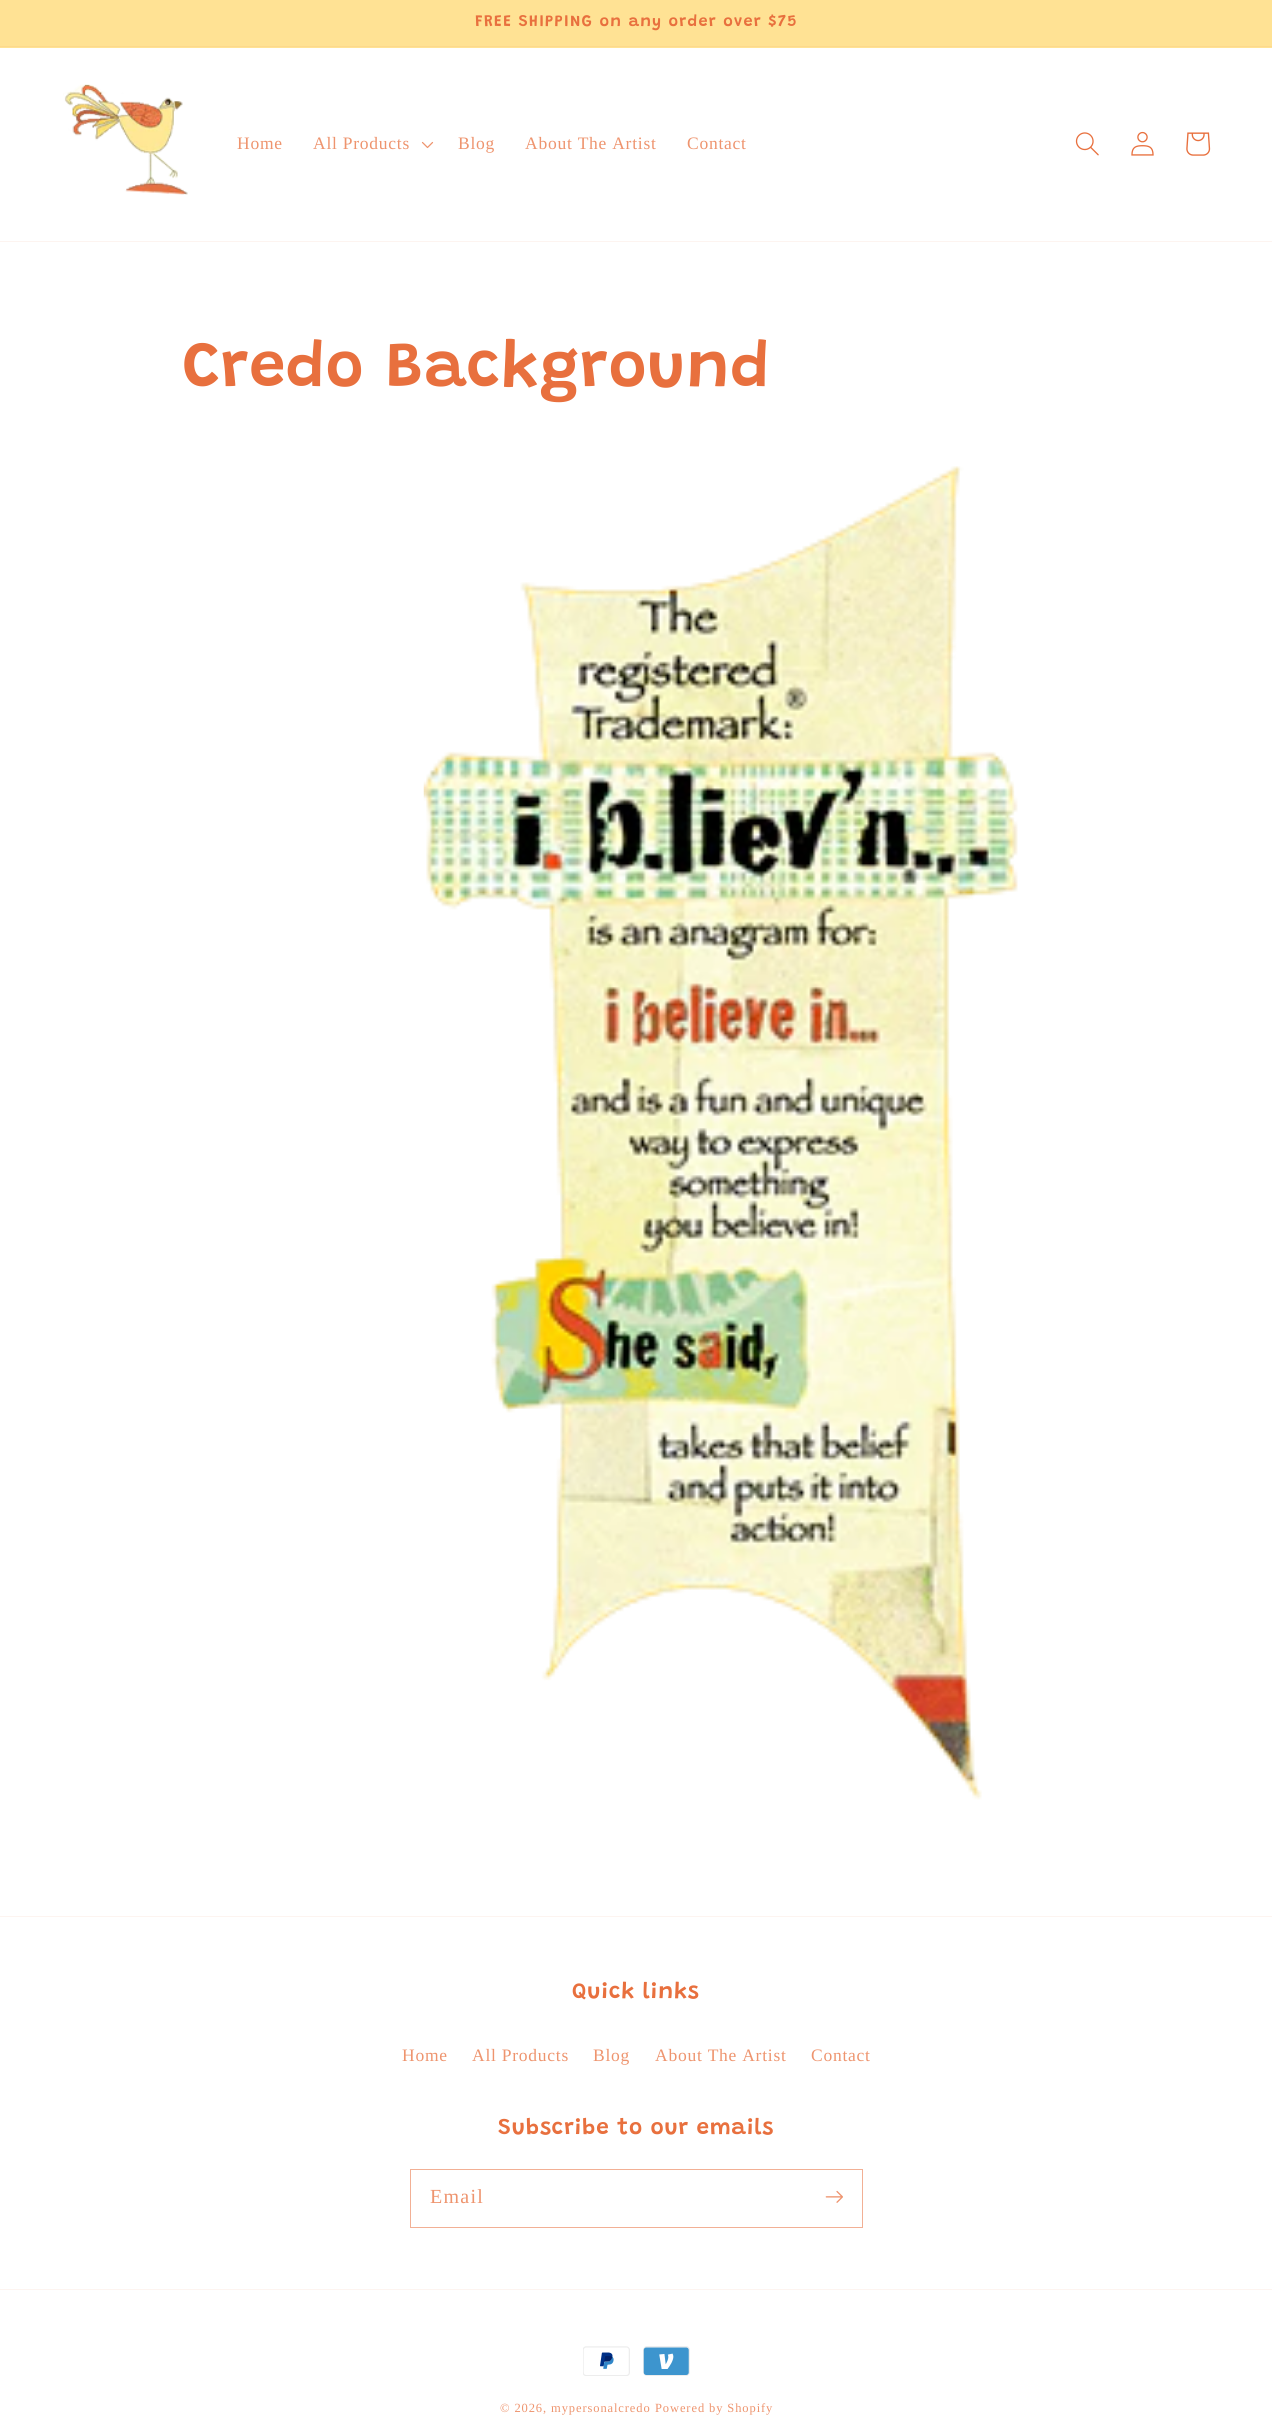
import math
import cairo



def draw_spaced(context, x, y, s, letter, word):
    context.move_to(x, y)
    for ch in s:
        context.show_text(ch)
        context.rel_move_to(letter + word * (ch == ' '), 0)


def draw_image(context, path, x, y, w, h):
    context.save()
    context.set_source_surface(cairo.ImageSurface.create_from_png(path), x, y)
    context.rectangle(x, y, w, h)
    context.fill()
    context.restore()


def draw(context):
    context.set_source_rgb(1, 1, 1)
    context.paint()
    context.set_source_rgb(1, 226 / 255, 148 / 255)
    context.rectangle(0, 0, 1272, 48)
    context.fill()
    context.set_source_rgb(253 / 255, 217 / 255, 141 / 255)
    context.rectangle(0, 46, 1272, 1)
    context.fill()
    context.set_source_rgb(253 / 255, 244 / 255, 240 / 255)
    context.rectangle(0, 241, 1272, 1)
    context.fill()
    draw_image(context, "images/1.png", 63, 84, 125, 111)
    draw_image(context, "images/2.png", 421, 141, 13, 8)
    draw_image(context, "images/3.png", 1075, 132, 24, 24)
    draw_image(context, "images/4.png", 1131, 131, 23, 25)
    draw_image(context, "images/5.png", 1186, 132, 25, 24)
    draw_image(context, "images/6.png", 423, 466, 595, 1334)
    context.rectangle(0, 1916, 1272, 1)
    context.fill()
    context.rectangle(410.5, 2169.5, 452, 58)
    context.set_source_rgb(242 / 255, 176 / 255, 149 / 255)
    context.set_line_width(1)
    context.stroke()
    draw_image(context, "images/7.png", 825, 2190, 18, 13)
    context.set_source_rgb(253 / 255, 244 / 255, 240 / 255)
    context.rectangle(0, 2289, 1272, 1)
    context.fill()
    draw_image(context, "images/8.png", 583, 2346, 47, 30)
    draw_image(context, "images/9.png", 643, 2346, 47, 30)
    context.select_font_face("Grandstander SemiBold")
    context.set_font_size(16.25)
    context.set_source_rgb(232 / 255, 112 / 255, 62 / 255)
    draw_spaced(context, 475, 26, "FREE SHIPPING on any order over $75", 1.25, 0)
    context.select_font_face("Liberation Serif")
    context.set_font_size(17.5)
    context.set_source_rgb(238 / 255, 148 / 255, 110 / 255)
    draw_spaced(context, 237, 149, "Home", 0.75, 0)
    draw_spaced(context, 313, 149, "All Products", 0.75, 0)
    draw_spaced(context, 458, 149, "Blog", 0.75, 0)
    draw_spaced(context, 525, 149, "About The Artist", 0.75, 0)
    draw_spaced(context, 687, 149, "Contact", 0.75, 0)
    context.select_font_face("Grandstander SemiBold")
    context.set_font_size(65)
    context.set_source_rgb(232 / 255, 112 / 255, 62 / 255)
    draw_spaced(context, 183, 386, "Credo Background", 0.75, 0)
    context.set_font_size(22.5)
    draw_spaced(context, 572, 1998, "Quick links", 0.75, 0)
    context.select_font_face("Liberation Serif")
    context.set_font_size(17.5)
    context.set_source_rgb(238 / 255, 148 / 255, 110 / 255)
    draw_spaced(context, 402, 2061, "Home", 0.75, 0)
    draw_spaced(context, 472, 2061, "All Products", 0.75, 0)
    draw_spaced(context, 593, 2061, "Blog", 0.75, 0)
    draw_spaced(context, 655, 2061, "About The Artist", 0.75, 0)
    draw_spaced(context, 811, 2061, "Contact", 0.75, 0)
    context.select_font_face("Grandstander SemiBold")
    context.set_font_size(22.5)
    context.set_source_rgb(232 / 255, 112 / 255, 62 / 255)
    draw_spaced(context, 498, 2134, "Subscribe to our emails", 0.75, 0)
    context.select_font_face("Liberation Serif")
    context.set_font_size(20)
    context.set_source_rgb(238 / 255, 148 / 255, 110 / 255)
    draw_spaced(context, 430, 2203, "Email", 1.25, 0)
    context.set_font_size(12.5)
    draw_spaced(context, 500, 2412, "© 2026, mypersonalcredo", 0.9, 0)
    draw_spaced(context, 655, 2412, "Powered by Shopify", 0.9, 0)


surface = cairo.ImageSurface(cairo.Format.RGB24, 1272, 2423)
context = cairo.Context(surface)
options = cairo.FontOptions()
options.set_hint_metrics(cairo.HintMetrics.OFF)
options.set_hint_style(cairo.HintStyle.NONE)
context.set_font_options(options)
context.set_miter_limit(4)
draw(context)
surface.write_to_png("out.png")
